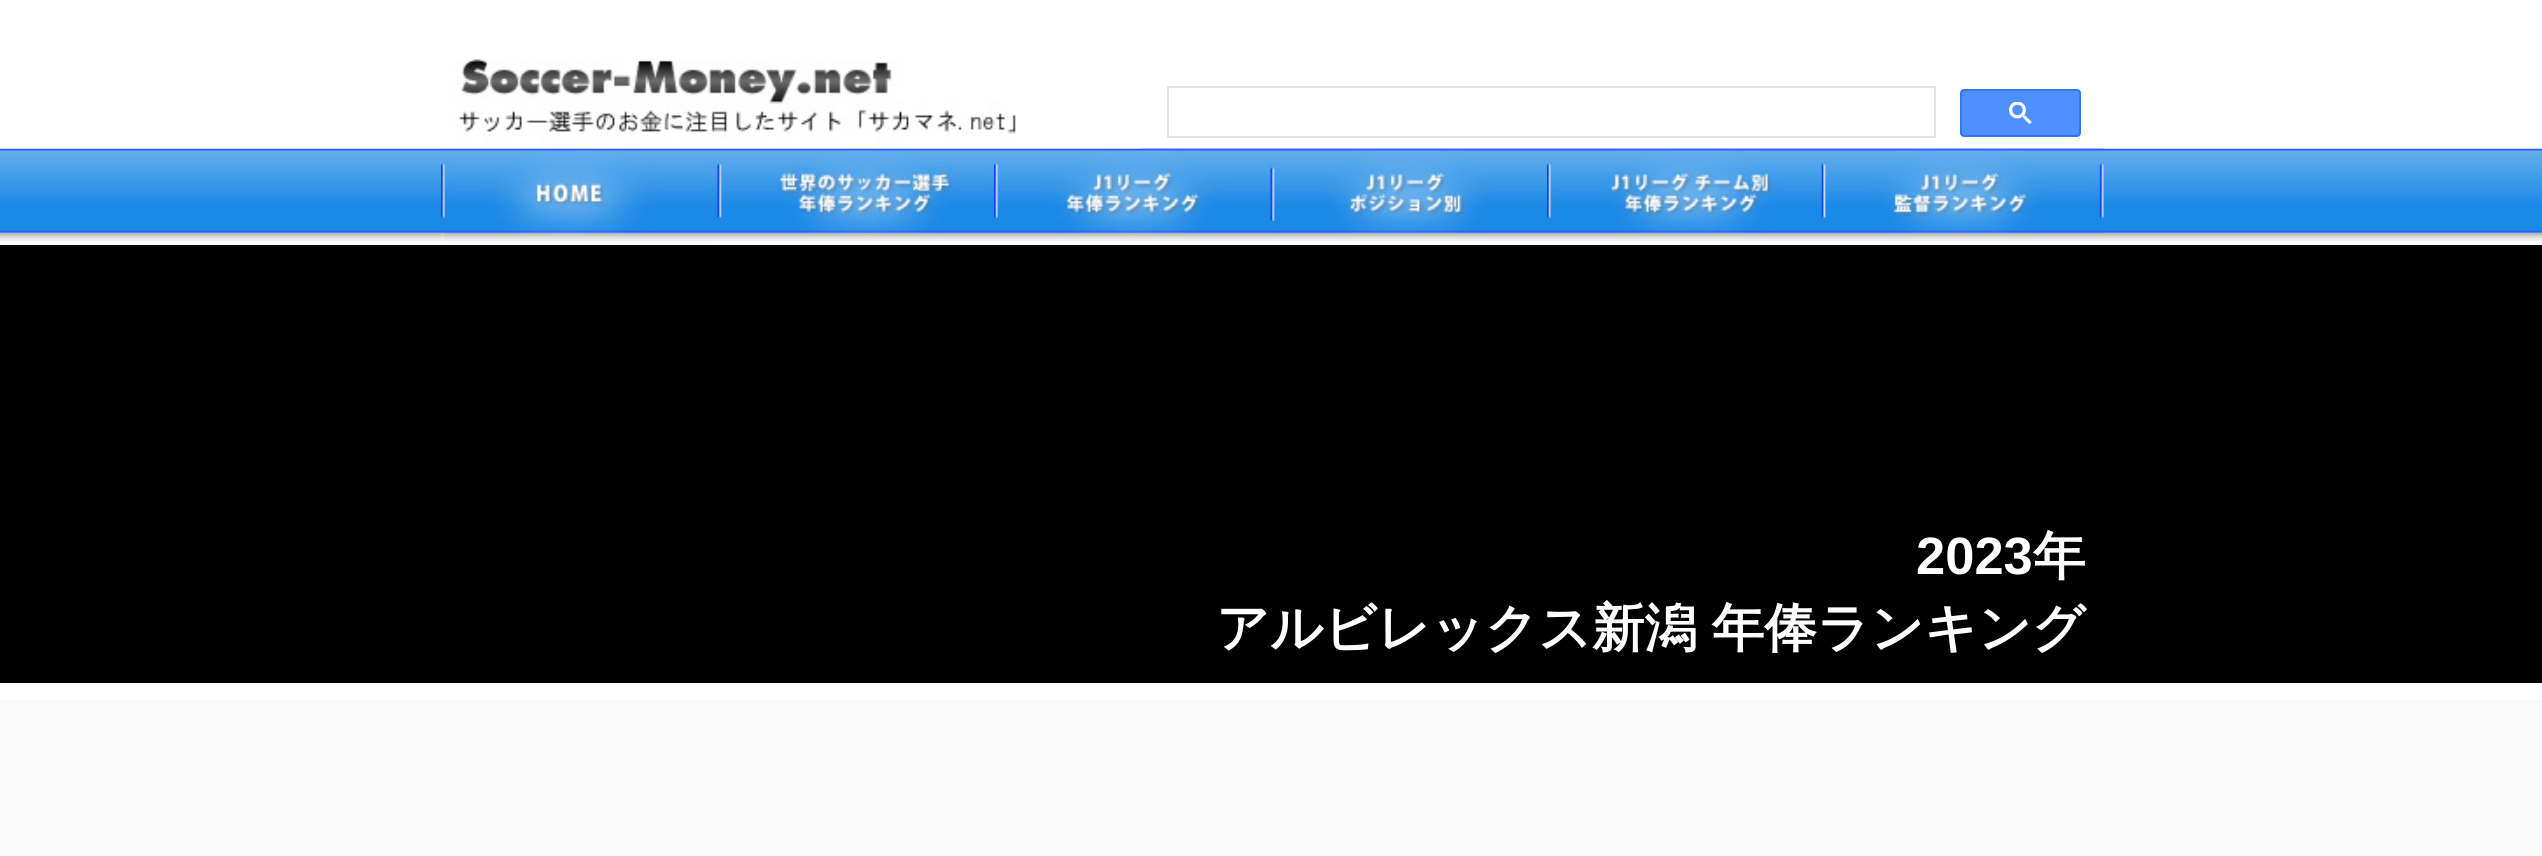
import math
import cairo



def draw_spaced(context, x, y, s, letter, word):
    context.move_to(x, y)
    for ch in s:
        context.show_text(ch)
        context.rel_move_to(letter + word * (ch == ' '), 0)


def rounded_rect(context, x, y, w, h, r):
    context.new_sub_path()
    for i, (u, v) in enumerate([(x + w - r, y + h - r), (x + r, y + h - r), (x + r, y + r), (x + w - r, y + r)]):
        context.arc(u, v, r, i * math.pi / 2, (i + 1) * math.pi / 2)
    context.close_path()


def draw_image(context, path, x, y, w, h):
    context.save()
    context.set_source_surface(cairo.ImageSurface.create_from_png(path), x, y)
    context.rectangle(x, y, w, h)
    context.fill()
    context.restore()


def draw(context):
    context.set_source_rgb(1, 1, 1)
    context.paint()
    draw_image(context, "images/3.png", 0, 148, 2542, 94)
    draw_image(context, "images/1.png", 441, 59, 700, 90)
    context.rectangle(1168, 87, 767, 50)
    context.set_source_rgb(223 / 255, 225 / 255, 229 / 255)
    context.stroke()
    context.set_source_rgb(77 / 255, 144 / 255, 254 / 255)
    rounded_rect(context, 1961, 90, 119, 46, 3)
    context.fill_preserve()
    context.set_source_rgb(48 / 255, 121 / 255, 237 / 255)
    context.stroke()
    draw_image(context, "images/2.png", 2009, 102, 23, 22)
    draw_image(context, "images/4.png", 441, 148, 277, 95)
    draw_image(context, "images/5.png", 717, 148, 277, 86)
    draw_image(context, "images/6.png", 994, 148, 277, 86)
    draw_image(context, "images/7.png", 1270, 148, 277, 86)
    draw_image(context, "images/8.png", 1547, 148, 277, 86)
    draw_image(context, "images/9.png", 1823, 148, 281, 86)
    context.set_source_rgb(0, 0, 0)
    context.rectangle(0, 245, 2542, 438)
    context.fill()
    context.set_source_rgb(250 / 255, 250 / 255, 250 / 255)
    context.rectangle(0, 700, 2542, 156)
    context.fill()
    context.select_font_face("Liberation Sans", cairo.FontSlant.NORMAL, cairo.FontWeight.BOLD)
    context.set_font_size(52.5)
    context.set_source_rgb(1, 1, 1)
    context.move_to(1916, 574)
    context.show_text("2023")
    context.select_font_face("WenQuanYi Zen Hei", cairo.FontSlant.NORMAL, cairo.FontWeight.BOLD)
    context.move_to(2033, 574)
    context.show_text("年")
    draw_spaced(context, 1216, 646, "アルビレックス新潟 年俸ランキング", 0, -1)


surface = cairo.ImageSurface(cairo.Format.RGB24, 2542, 856)
context = cairo.Context(surface)
options = cairo.FontOptions()
options.set_hint_metrics(cairo.HintMetrics.OFF)
options.set_hint_style(cairo.HintStyle.NONE)
context.set_font_options(options)
context.set_miter_limit(4)
draw(context)
surface.write_to_png("out.png")
